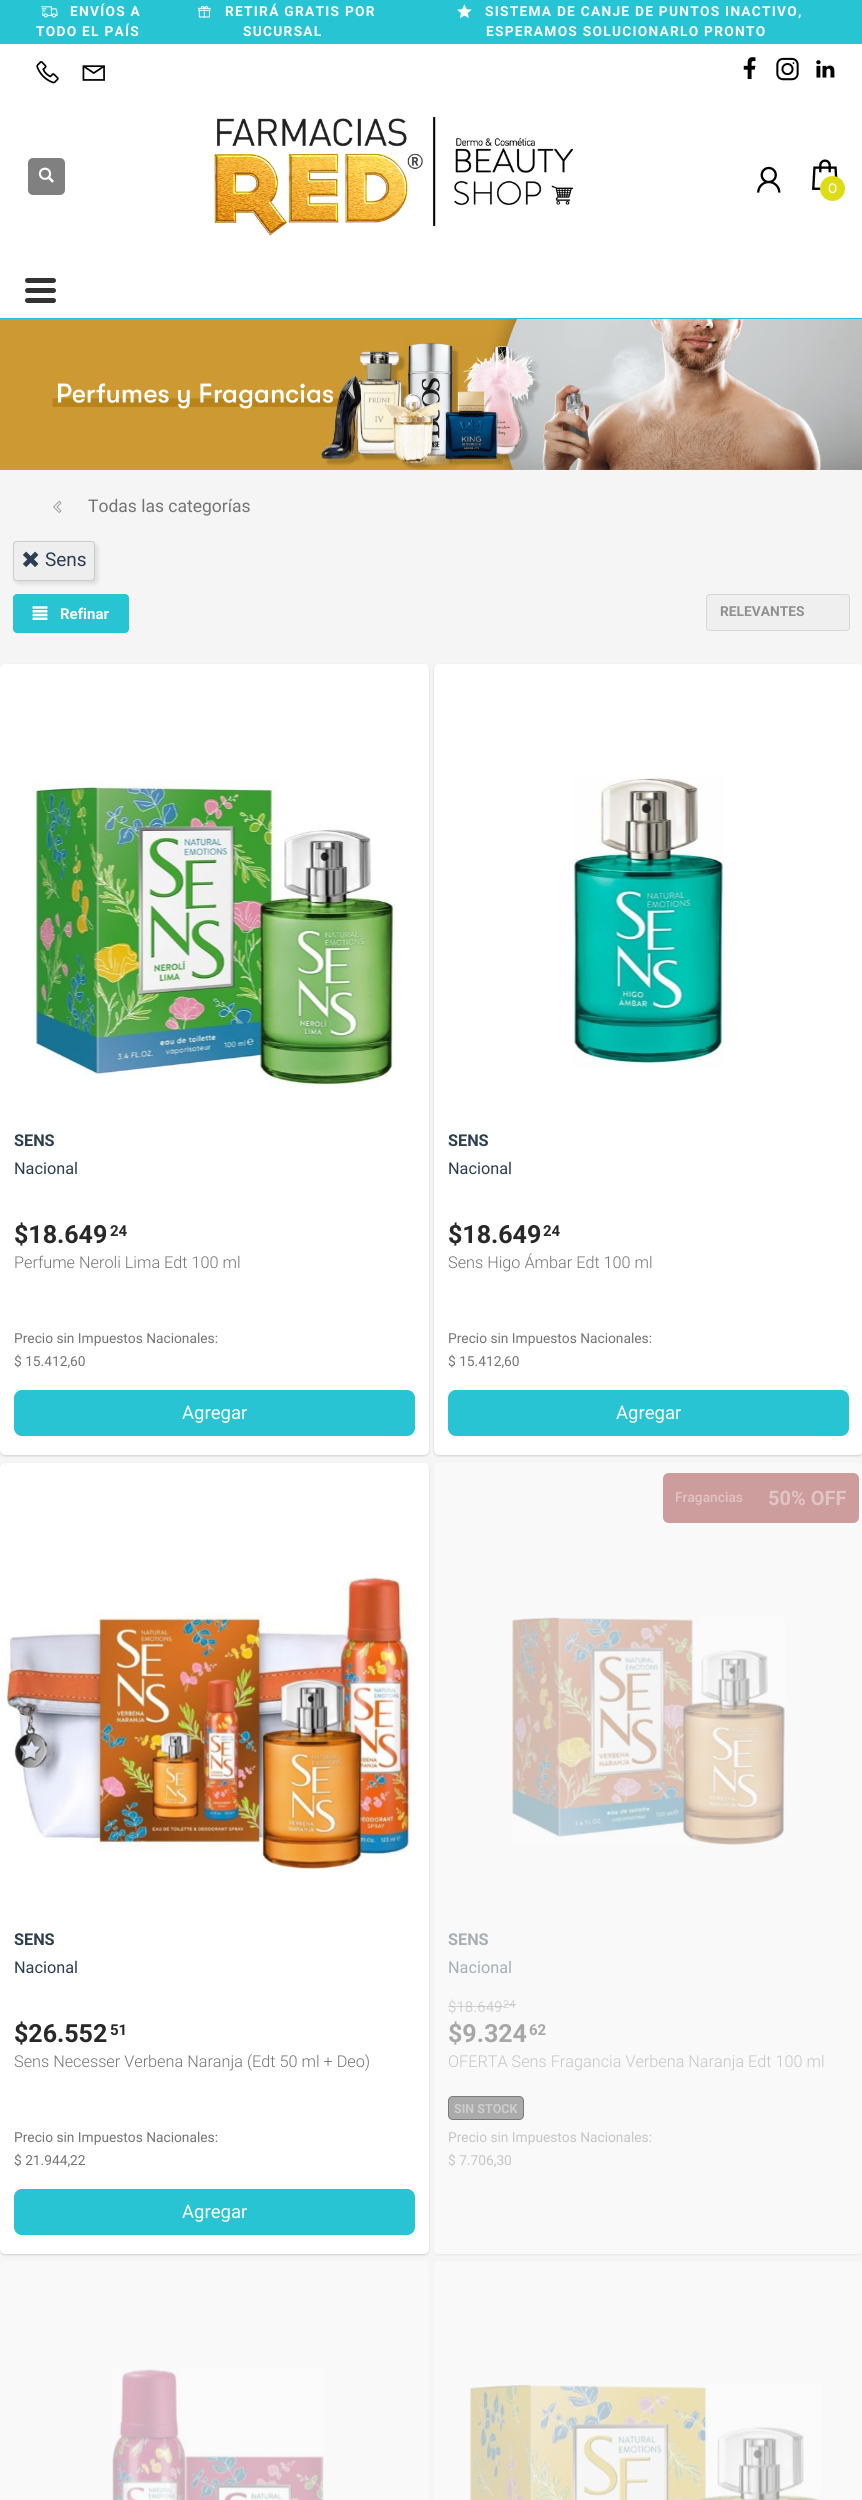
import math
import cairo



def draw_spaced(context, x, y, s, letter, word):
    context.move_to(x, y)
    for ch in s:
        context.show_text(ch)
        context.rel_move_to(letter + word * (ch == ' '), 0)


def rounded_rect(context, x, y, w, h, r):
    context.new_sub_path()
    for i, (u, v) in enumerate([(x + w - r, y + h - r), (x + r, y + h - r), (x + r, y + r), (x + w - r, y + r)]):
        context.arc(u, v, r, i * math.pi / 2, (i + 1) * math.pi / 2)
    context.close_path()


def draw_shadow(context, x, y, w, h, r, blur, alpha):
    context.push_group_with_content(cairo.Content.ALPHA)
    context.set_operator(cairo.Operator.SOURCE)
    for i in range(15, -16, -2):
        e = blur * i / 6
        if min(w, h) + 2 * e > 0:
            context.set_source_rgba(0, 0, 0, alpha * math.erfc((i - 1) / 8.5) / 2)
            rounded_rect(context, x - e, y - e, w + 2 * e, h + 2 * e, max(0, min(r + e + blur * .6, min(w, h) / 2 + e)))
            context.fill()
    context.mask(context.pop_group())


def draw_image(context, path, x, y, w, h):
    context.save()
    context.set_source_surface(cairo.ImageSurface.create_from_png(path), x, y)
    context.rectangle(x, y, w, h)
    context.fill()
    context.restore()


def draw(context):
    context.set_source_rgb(245 / 255, 245 / 255, 245 / 255)
    context.paint()
    context.set_source_rgb(39 / 255, 196 / 255, 212 / 255)
    context.rectangle(0, 0, 862, 44)
    context.fill()
    draw_image(context, "images/1.png", 41, 6, 17, 12)
    draw_image(context, "images/2.png", 198, 5, 13, 13)
    draw_image(context, "images/3.png", 457, 4, 15, 15)
    context.set_source_rgb(1, 1, 1)
    context.rectangle(0, 44, 862, 274)
    context.fill()
    draw_image(context, "images/4.png", 36, 61, 23, 23)
    draw_image(context, "images/5.png", 82, 65, 23, 16)
    draw_image(context, "images/6.png", 743, 57, 13, 23)
    draw_image(context, "images/7.png", 776, 57, 23, 24)
    draw_image(context, "images/8.png", 816, 60, 19, 18)
    context.set_source_rgb(128 / 255, 128 / 255, 128 / 255)
    rounded_rect(context, 28, 158, 37, 37, 5)
    context.fill()
    draw_image(context, "images/9.png", 38, 167, 16, 16)
    draw_image(context, "images/10.png", 214, 116, 360, 120)
    draw_image(context, "images/11.png", 757, 166, 24, 27)
    draw_image(context, "images/12.png", 812, 159, 26, 31)
    context.set_source_rgb(221 / 255, 220 / 255, 21 / 255)
    context.arc(832.5, 188.5, 12.5, 0, 2 * math.pi)
    context.fill()
    context.set_source_rgb(40 / 255, 196 / 255, 212 / 255)
    context.rectangle(0, 318, 862, 1)
    context.fill()
    context.set_source_rgb(51 / 255, 51 / 255, 51 / 255)
    rounded_rect(context, 25, 298, 31, 5, 2.5)
    context.fill()
    rounded_rect(context, 25, 288, 31, 5, 2.5)
    context.fill()
    rounded_rect(context, 25, 278, 31, 5, 2.5)
    context.fill()
    draw_image(context, "images/13.png", 0, 319, 862, 151)
    draw_image(context, "images/14.png", 53, 500, 9, 13)
    context.save()
    context.set_fill_rule(cairo.FillRule.EVEN_ODD)
    context.new_path()
    context.move_to(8, 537)
    context.line_to(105, 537)
    context.line_to(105, 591)
    context.line_to(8, 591)
    context.close_path()
    context.move_to(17, 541)
    context.line_to(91, 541)
    context.curve_to(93, 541, 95, 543, 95, 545)
    context.line_to(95, 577)
    context.curve_to(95, 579, 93, 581, 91, 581)
    context.line_to(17, 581)
    context.curve_to(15, 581, 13, 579, 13, 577)
    context.line_to(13, 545)
    context.curve_to(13, 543, 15, 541, 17, 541)
    context.close_path()
    context.clip()
    context.set_source_rgb(0, 0, 0)
    draw_shadow(context, 15, 544, 83, 40, 4, 2, 0.1)
    context.restore()
    context.set_source_rgba(0, 0, 0, 0.03)
    context.rectangle(13, 541, 82, 40)
    context.fill()
    rounded_rect(context, 13.5, 541.5, 81, 39, 3.5)
    context.set_source_rgb(204 / 255, 204 / 255, 204 / 255)
    context.set_line_width(1)
    context.stroke()
    draw_image(context, "images/15.png", 23, 551, 16, 16)
    context.set_source_rgb(40 / 255, 196 / 255, 212 / 255)
    rounded_rect(context, 13.5, 594.5, 115, 38, 3.5)
    context.fill_preserve()
    context.stroke()
    draw_image(context, "images/16.png", 32, 606, 16, 14)
    context.set_source_rgb(239 / 255, 239 / 255, 239 / 255)
    rounded_rect(context, 706.5, 594.5, 143, 36, 3.5)
    context.fill_preserve()
    context.set_source_rgb(215 / 255, 215 / 255, 215 / 255)
    context.stroke()
    context.set_source_rgb(0, 0, 0)
    draw_shadow(context, 0, 665, 429, 791, 5, 1, 0.16)
    context.set_source_rgb(1, 1, 1)
    rounded_rect(context, 0, 664, 429, 791, 5)
    context.fill()
    draw_image(context, "images/17.png", 32, 781, 365, 307)
    context.set_source_rgb(40 / 255, 196 / 255, 212 / 255)
    rounded_rect(context, 14.5, 1390.5, 400, 45, 7.5)
    context.fill_preserve()
    context.stroke()
    context.set_source_rgb(0, 0, 0)
    draw_shadow(context, 434, 665, 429, 791, 5, 1, 0.16)
    context.set_source_rgb(1, 1, 1)
    rounded_rect(context, 434, 664, 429, 791, 5)
    context.fill()
    draw_image(context, "images/18.png", 572, 777, 153, 292)
    context.set_source_rgb(40 / 255, 196 / 255, 212 / 255)
    rounded_rect(context, 448.5, 1390.5, 400, 45, 7.5)
    context.fill_preserve()
    context.stroke()
    context.set_source_rgb(0, 0, 0)
    draw_shadow(context, 0, 1464, 429, 791, 5, 1, 0.16)
    context.set_source_rgb(1, 1, 1)
    rounded_rect(context, 0, 1463, 429, 791, 5)
    context.fill()
    draw_image(context, "images/19.png", 1, 1573, 410, 300)
    context.set_source_rgb(40 / 255, 196 / 255, 212 / 255)
    rounded_rect(context, 14.5, 2189.5, 400, 45, 7.5)
    context.fill_preserve()
    context.stroke()
    context.save()
    context.set_fill_rule(cairo.FillRule.EVEN_ODD)
    context.new_path()
    context.move_to(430, 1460)
    context.line_to(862, 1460)
    context.line_to(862, 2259)
    context.line_to(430, 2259)
    context.close_path()
    context.move_to(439, 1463)
    context.line_to(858, 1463)
    context.curve_to(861, 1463, 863, 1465, 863, 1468)
    context.line_to(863, 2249)
    context.curve_to(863, 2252, 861, 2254, 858, 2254)
    context.line_to(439, 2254)
    context.curve_to(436, 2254, 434, 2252, 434, 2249)
    context.line_to(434, 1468)
    context.curve_to(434, 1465, 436, 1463, 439, 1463)
    context.close_path()
    context.clip()
    context.set_source_rgb(0, 0, 0)
    draw_shadow(context, 434, 1464, 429, 791, 5, 1, 0.06)
    context.restore()
    context.set_source_rgba(1, 1, 1, 0.4)
    rounded_rect(context, 434, 1463, 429, 791, 5)
    context.fill()
    context.set_source_rgb(205 / 255, 156 / 255, 156 / 255)
    context.new_path()
    context.move_to(669, 1473)
    context.line_to(755, 1473)
    context.line_to(755, 1523)
    context.line_to(669, 1523)
    context.curve_to(665.5, 1523, 663, 1520.5, 663, 1517)
    context.line_to(663, 1479)
    context.curve_to(663, 1475.5, 665.5, 1473, 669, 1473)
    context.close_path()
    context.fill()
    context.new_path()
    context.move_to(755, 1473)
    context.line_to(853, 1473)
    context.curve_to(856.5, 1473, 859, 1475.5, 859, 1479)
    context.line_to(859, 1517)
    context.curve_to(859, 1520.5, 856.5, 1523, 853, 1523)
    context.line_to(755, 1523)
    context.close_path()
    context.fill()
    draw_image(context, "images/20.png", 512, 1617, 273, 228)
    context.set_source_rgb(171 / 255, 171 / 255, 171 / 255)
    rounded_rect(context, 448, 2096, 76, 24, 5)
    context.fill()
    rounded_rect(context, 448.5, 2096.5, 75, 23, 4.5)
    context.set_source_rgba(51 / 255, 51 / 255, 51 / 255, 0.4)
    context.stroke()
    context.set_source_rgba(1, 1, 1, 0.4)
    rounded_rect(context, 0, 2261, 429, 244, 5)
    context.fill()
    draw_image(context, "images/21.png", 112, 2369, 212, 131)
    context.set_source_rgb(249 / 255, 249 / 255, 249 / 255)
    rounded_rect(context, 434, 2261, 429, 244, 5)
    context.fill()
    draw_image(context, "images/22.png", 469, 2384, 352, 116)
    context.select_font_face("Roboto", cairo.FontSlant.NORMAL, cairo.FontWeight.BOLD)
    context.set_font_size(13.75)
    context.set_source_rgb(1, 1, 1)
    draw_spaced(context, 70, 16, "ENVÍOS A", 1.25, 0)
    draw_spaced(context, 36, 36, "TODO EL PAÍS", 1.25, 0)
    draw_spaced(context, 225, 16, "RETIRÁ GRATIS POR", 1.25, 0)
    draw_spaced(context, 243, 36, "SUCURSAL", 1.25, 0)
    draw_spaced(context, 485, 16, "SISTEMA DE CANJE DE PUNTOS INACTIVO,", 1.25, 0)
    draw_spaced(context, 486, 36, "ESPERAMOS SOLUCIONARLO PRONTO", 1.25, 0)
    context.select_font_face("Montserrat Medium")
    context.move_to(828, 193)
    context.show_text("0")
    context.select_font_face("Roboto")
    context.set_font_size(17.5)
    context.set_source_rgb(116 / 255, 116 / 255, 116 / 255)
    context.move_to(88, 512)
    context.show_text("Todas las categorías")
    context.set_font_size(19)
    context.set_source_rgb(44 / 255, 62 / 255, 80 / 255)
    context.move_to(45, 566)
    context.show_text("Sens")
    context.select_font_face("Roboto", cairo.FontSlant.NORMAL, cairo.FontWeight.BOLD)
    context.set_font_size(15)
    context.set_source_rgb(1, 1, 1)
    context.move_to(60, 619)
    context.show_text("Refinar")
    context.set_font_size(13.75)
    context.set_source_rgb(144 / 255, 144 / 255, 144 / 255)
    context.move_to(720, 616)
    context.show_text("RELEVANTES")
    context.set_font_size(16.25)
    context.set_source_rgb(44 / 255, 62 / 255, 80 / 255)
    context.move_to(14, 1146)
    context.show_text("SENS")
    context.select_font_face("Roboto")
    context.move_to(14, 1174)
    context.show_text("Nacional")
    context.select_font_face("Roboto", cairo.FontSlant.NORMAL, cairo.FontWeight.BOLD)
    context.set_font_size(25)
    context.set_source_rgb(40 / 255, 40 / 255, 40 / 255)
    context.move_to(14, 1243)
    context.show_text("$18.649")
    context.set_font_size(15)
    context.move_to(110, 1236)
    context.show_text("24")
    context.select_font_face("Roboto Light")
    context.set_font_size(16.25)
    context.set_source_rgb(116 / 255, 116 / 255, 116 / 255)
    context.move_to(14, 1268)
    context.show_text("Perfume Neroli Lima Edt 100 ml")
    context.select_font_face("Roboto")
    context.set_font_size(13.75)
    context.move_to(14, 1343)
    context.show_text("Precio sin Impuestos Nacionales:")
    context.move_to(14, 1366)
    context.show_text("$ 15.412,60")
    context.set_font_size(18.5)
    context.set_source_rgb(1, 1, 1)
    context.move_to(182, 1419)
    context.show_text("Agregar")
    context.select_font_face("Roboto", cairo.FontSlant.NORMAL, cairo.FontWeight.BOLD)
    context.set_font_size(16.25)
    context.set_source_rgb(44 / 255, 62 / 255, 80 / 255)
    context.move_to(448, 1146)
    context.show_text("SENS")
    context.select_font_face("Roboto")
    context.move_to(448, 1174)
    context.show_text("Nacional")
    context.select_font_face("Roboto", cairo.FontSlant.NORMAL, cairo.FontWeight.BOLD)
    context.set_font_size(25)
    context.set_source_rgb(40 / 255, 40 / 255, 40 / 255)
    context.move_to(448, 1243)
    context.show_text("$18.649")
    context.set_font_size(15)
    context.move_to(543, 1236)
    context.show_text("24")
    context.select_font_face("Roboto Light")
    context.set_font_size(16.25)
    context.set_source_rgb(116 / 255, 116 / 255, 116 / 255)
    context.move_to(448, 1268)
    context.show_text("Sens Higo Ámbar Edt 100 ml")
    context.select_font_face("Roboto")
    context.set_font_size(13.75)
    context.move_to(448, 1343)
    context.show_text("Precio sin Impuestos Nacionales:")
    context.move_to(448, 1366)
    context.show_text("$ 15.412,60")
    context.set_font_size(18.5)
    context.set_source_rgb(1, 1, 1)
    context.move_to(616, 1419)
    context.show_text("Agregar")
    context.select_font_face("Roboto", cairo.FontSlant.NORMAL, cairo.FontWeight.BOLD)
    context.set_font_size(16.25)
    context.set_source_rgb(44 / 255, 62 / 255, 80 / 255)
    context.move_to(14, 1945)
    context.show_text("SENS")
    context.select_font_face("Roboto")
    context.move_to(14, 1973)
    context.show_text("Nacional")
    context.select_font_face("Roboto", cairo.FontSlant.NORMAL, cairo.FontWeight.BOLD)
    context.set_font_size(25)
    context.set_source_rgb(40 / 255, 40 / 255, 40 / 255)
    context.move_to(14, 2042)
    context.show_text("$26.552")
    context.set_font_size(15)
    context.move_to(110, 2035)
    context.show_text("51")
    context.select_font_face("Roboto Light")
    context.set_font_size(16.25)
    context.set_source_rgb(116 / 255, 116 / 255, 116 / 255)
    context.move_to(14, 2067)
    context.show_text("Sens Necesser Verbena Naranja (Edt 50 ml + Deo)")
    context.select_font_face("Roboto")
    context.set_font_size(13.75)
    context.move_to(14, 2142)
    context.show_text("Precio sin Impuestos Nacionales:")
    context.move_to(14, 2165)
    context.show_text("$ 21.944,22")
    context.set_font_size(18.5)
    context.set_source_rgb(1, 1, 1)
    context.move_to(182, 2218)
    context.show_text("Agregar")
    context.select_font_face("Roboto Medium")
    context.set_font_size(13.75)
    context.set_source_rgb(225 / 255, 196 / 255, 196 / 255)
    context.move_to(675, 1502)
    context.show_text("Fragancias")
    context.select_font_face("Roboto", cairo.FontSlant.NORMAL, cairo.FontWeight.BOLD)
    context.set_font_size(20)
    context.move_to(768, 1505)
    context.show_text("50% OFF")
    context.set_font_size(16.25)
    context.set_source_rgb(169 / 255, 174 / 255, 178 / 255)
    context.move_to(448, 1945)
    context.show_text("SENS")
    context.select_font_face("Roboto")
    context.move_to(448, 1973)
    context.show_text("Nacional")
    context.set_font_size(15)
    context.set_source_rgb(212 / 255, 212 / 255, 212 / 255)
    context.move_to(448, 2012)
    context.show_text("$18.649")
    context.set_source_rgba(153 / 255, 153 / 255, 153 / 255, 0.4)
    context.rectangle(448, 2006, 58, 1)
    context.fill()
    context.set_font_size(11)
    context.set_source_rgb(212 / 255, 212 / 255, 212 / 255)
    context.move_to(503, 2008)
    context.show_text("24")
    context.set_source_rgba(153 / 255, 153 / 255, 153 / 255, 0.4)
    context.rectangle(504, 2004, 12, 1)
    context.fill()
    context.select_font_face("Roboto", cairo.FontSlant.NORMAL, cairo.FontWeight.BOLD)
    context.set_font_size(25)
    context.set_source_rgb(167 / 255, 167 / 255, 167 / 255)
    context.move_to(448, 2042)
    context.show_text("$9.324")
    context.set_font_size(15)
    context.move_to(529, 2035)
    context.show_text("62")
    context.select_font_face("Roboto Light")
    context.set_font_size(16.25)
    context.set_source_rgb(197 / 255, 197 / 255, 197 / 255)
    context.move_to(448, 2067)
    context.show_text("OFERTA Sens Fragancia Verbena Naranja Edt 100 ml")
    context.select_font_face("Roboto", cairo.FontSlant.NORMAL, cairo.FontWeight.BOLD)
    context.set_font_size(12.5)
    context.set_source_rgb(205 / 255, 205 / 255, 205 / 255)
    context.move_to(454, 2113)
    context.show_text("SIN STOCK")
    context.select_font_face("Roboto")
    context.set_font_size(13.75)
    context.set_source_rgb(197 / 255, 197 / 255, 197 / 255)
    context.move_to(448, 2142)
    context.show_text("Precio sin Impuestos Nacionales:")
    context.move_to(448, 2165)
    context.show_text("$ 7.706,30")


surface = cairo.ImageSurface(cairo.Format.RGB24, 862, 2500)
context = cairo.Context(surface)
options = cairo.FontOptions()
options.set_hint_metrics(cairo.HintMetrics.OFF)
options.set_hint_style(cairo.HintStyle.NONE)
context.set_font_options(options)
context.set_miter_limit(4)
draw(context)
surface.write_to_png("out.png")
